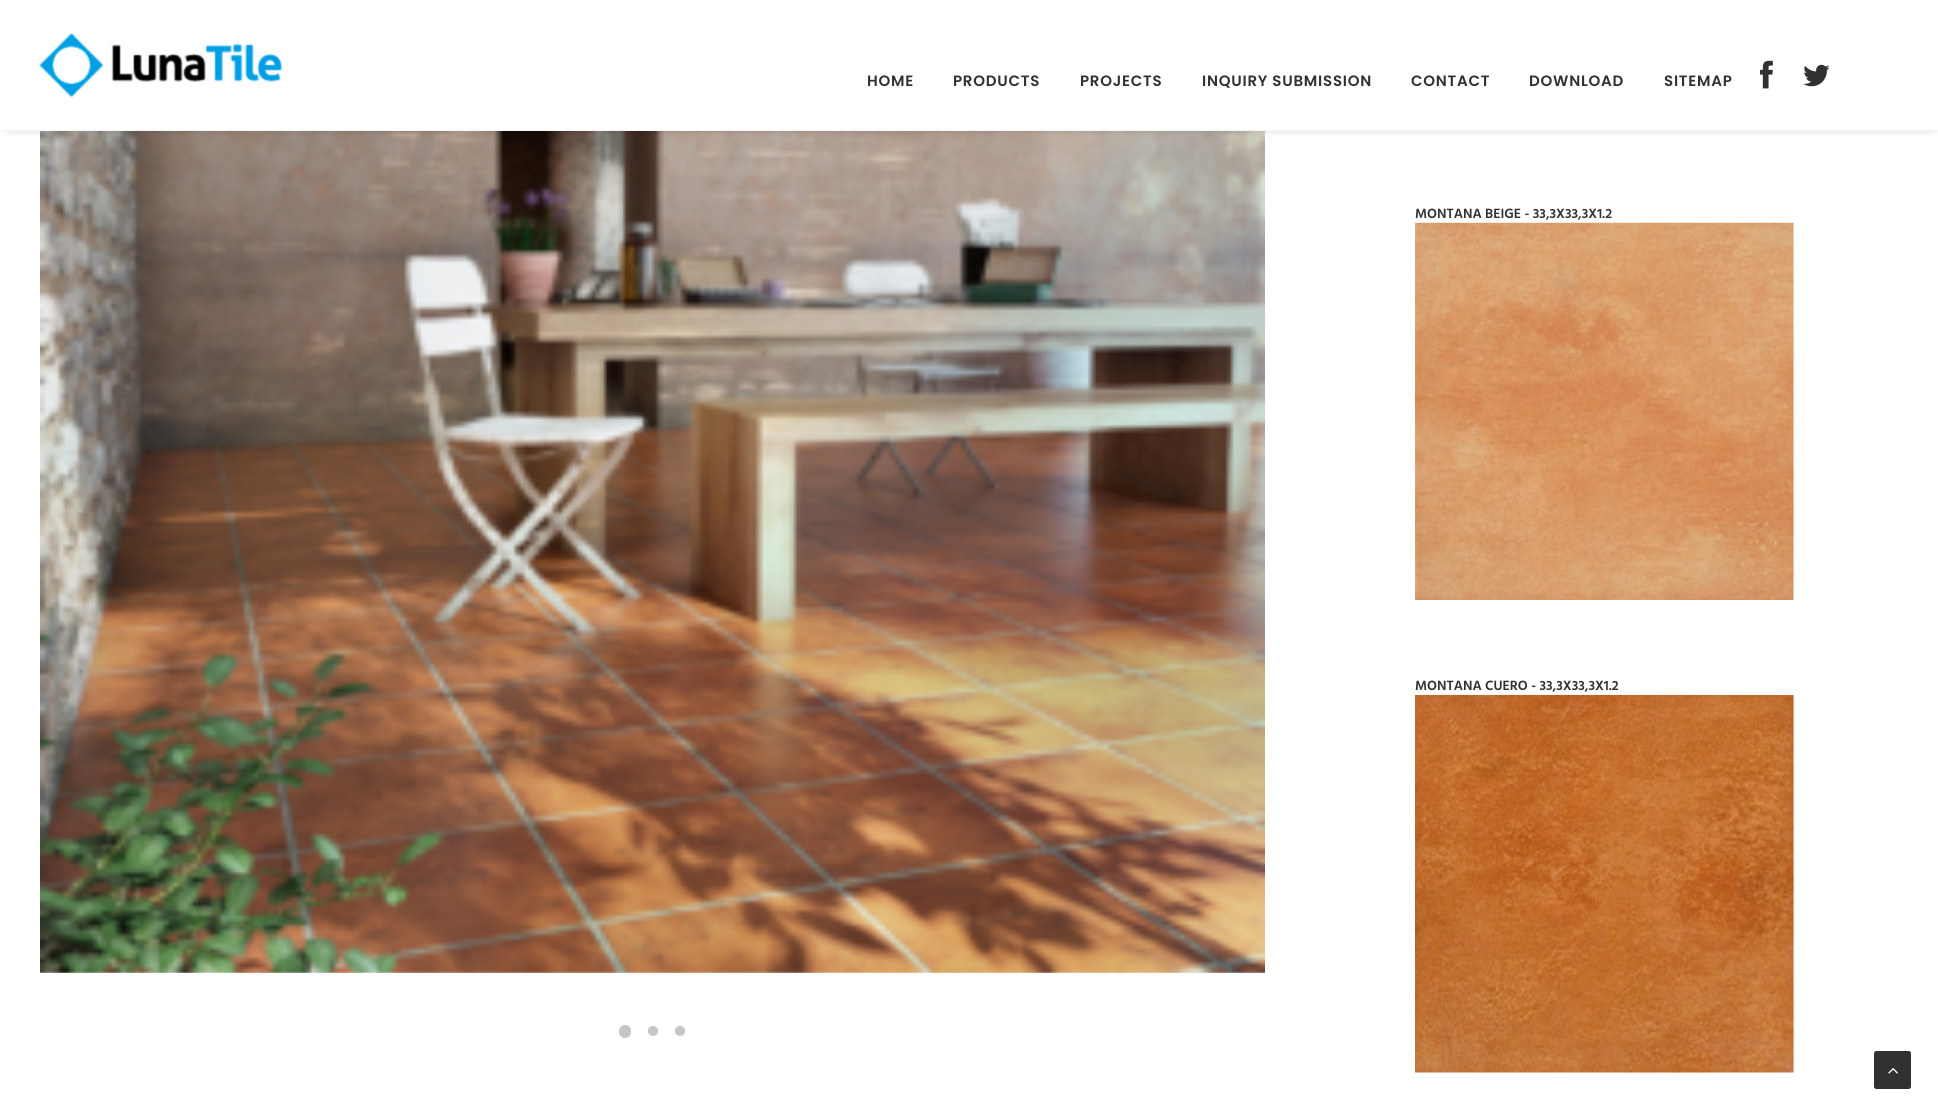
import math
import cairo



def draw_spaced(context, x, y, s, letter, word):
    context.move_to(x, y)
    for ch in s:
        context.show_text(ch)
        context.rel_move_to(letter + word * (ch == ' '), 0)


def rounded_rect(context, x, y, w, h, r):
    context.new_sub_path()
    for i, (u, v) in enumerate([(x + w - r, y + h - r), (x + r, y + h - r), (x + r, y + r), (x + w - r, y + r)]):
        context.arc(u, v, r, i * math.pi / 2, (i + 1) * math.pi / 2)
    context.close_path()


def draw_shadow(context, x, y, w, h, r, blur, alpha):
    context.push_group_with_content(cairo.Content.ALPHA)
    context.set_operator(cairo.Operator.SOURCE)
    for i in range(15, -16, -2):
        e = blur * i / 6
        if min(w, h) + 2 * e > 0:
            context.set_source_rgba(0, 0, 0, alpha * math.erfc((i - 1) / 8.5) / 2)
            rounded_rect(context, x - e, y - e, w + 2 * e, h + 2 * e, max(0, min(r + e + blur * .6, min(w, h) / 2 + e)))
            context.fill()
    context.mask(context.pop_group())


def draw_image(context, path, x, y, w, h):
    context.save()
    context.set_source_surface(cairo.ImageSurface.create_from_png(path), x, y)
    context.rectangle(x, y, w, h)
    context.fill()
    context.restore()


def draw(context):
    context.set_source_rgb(1, 1, 1)
    context.paint()
    draw_image(context, "images/4.png", 40, 131, 1225, 842)
    context.set_source_rgb(0, 0, 0)
    draw_shadow(context, 8, 18, 1925, 106, 0, 6, 0.6)
    context.set_source_rgb(1, 1, 1)
    context.rectangle(0, 5, 1938, 125)
    context.fill()
    context.set_source_rgb(245 / 255, 245 / 255, 245 / 255)
    context.rectangle(0, 130, 1938, 1)
    context.fill()
    draw_image(context, "images/1.png", 39, 33, 243, 64)
    draw_image(context, "images/2.png", 1760, 60, 13, 29)
    draw_image(context, "images/3.png", 1803, 64, 27, 23)
    context.set_source_rgb(198 / 255, 198 / 255, 199 / 255)
    rounded_rect(context, 619, 1025, 12, 13, 6)
    context.fill()
    context.arc(653, 1031, 5, 0, 2 * math.pi)
    context.fill()
    context.arc(680, 1031, 5, 0, 2 * math.pi)
    context.fill()
    draw_image(context, "images/5.png", 1415, 222, 379, 378)
    draw_image(context, "images/6.png", 1415, 695, 379, 378)
    context.set_source_rgb(48 / 255, 49 / 255, 51 / 255)
    rounded_rect(context, 1874.5, 1051.5, 36, 37, 2)
    context.fill_preserve()
    context.set_line_width(1)
    context.stroke()
    draw_image(context, "images/7.png", 1888, 1068, 10, 6)
    context.select_font_face("Poppins SemiBold")
    context.set_font_size(15)
    draw_spaced(context, 867, 86, "HOME", 0.75, 0)
    draw_spaced(context, 953, 86, "PRODUCTS", 0.75, 0)
    draw_spaced(context, 1080, 86, "PROJECTS", 0.75, 0)
    draw_spaced(context, 1202, 86, "INQUIRY SUBMISSION", 0.75, 0)
    draw_spaced(context, 1411, 86, "CONTACT", 0.75, 0)
    draw_spaced(context, 1529, 86, "DOWNLOAD", 0.75, 0)
    draw_spaced(context, 1664, 86, "SITEMAP", 0.75, 0)
    context.select_font_face("Hind SemiBold")
    context.set_font_size(13.75)
    context.move_to(1415, 218)
    context.show_text("MONTANA BEIGE - 33,3X33,3X1.2")
    context.move_to(1415, 690)
    context.show_text("MONTANA CUERO - 33,3X33,3X1.2")


surface = cairo.ImageSurface(cairo.Format.RGB24, 1938, 1116)
context = cairo.Context(surface)
options = cairo.FontOptions()
options.set_hint_metrics(cairo.HintMetrics.OFF)
options.set_hint_style(cairo.HintStyle.NONE)
context.set_font_options(options)
context.set_miter_limit(4)
draw(context)
surface.write_to_png("out.png")
